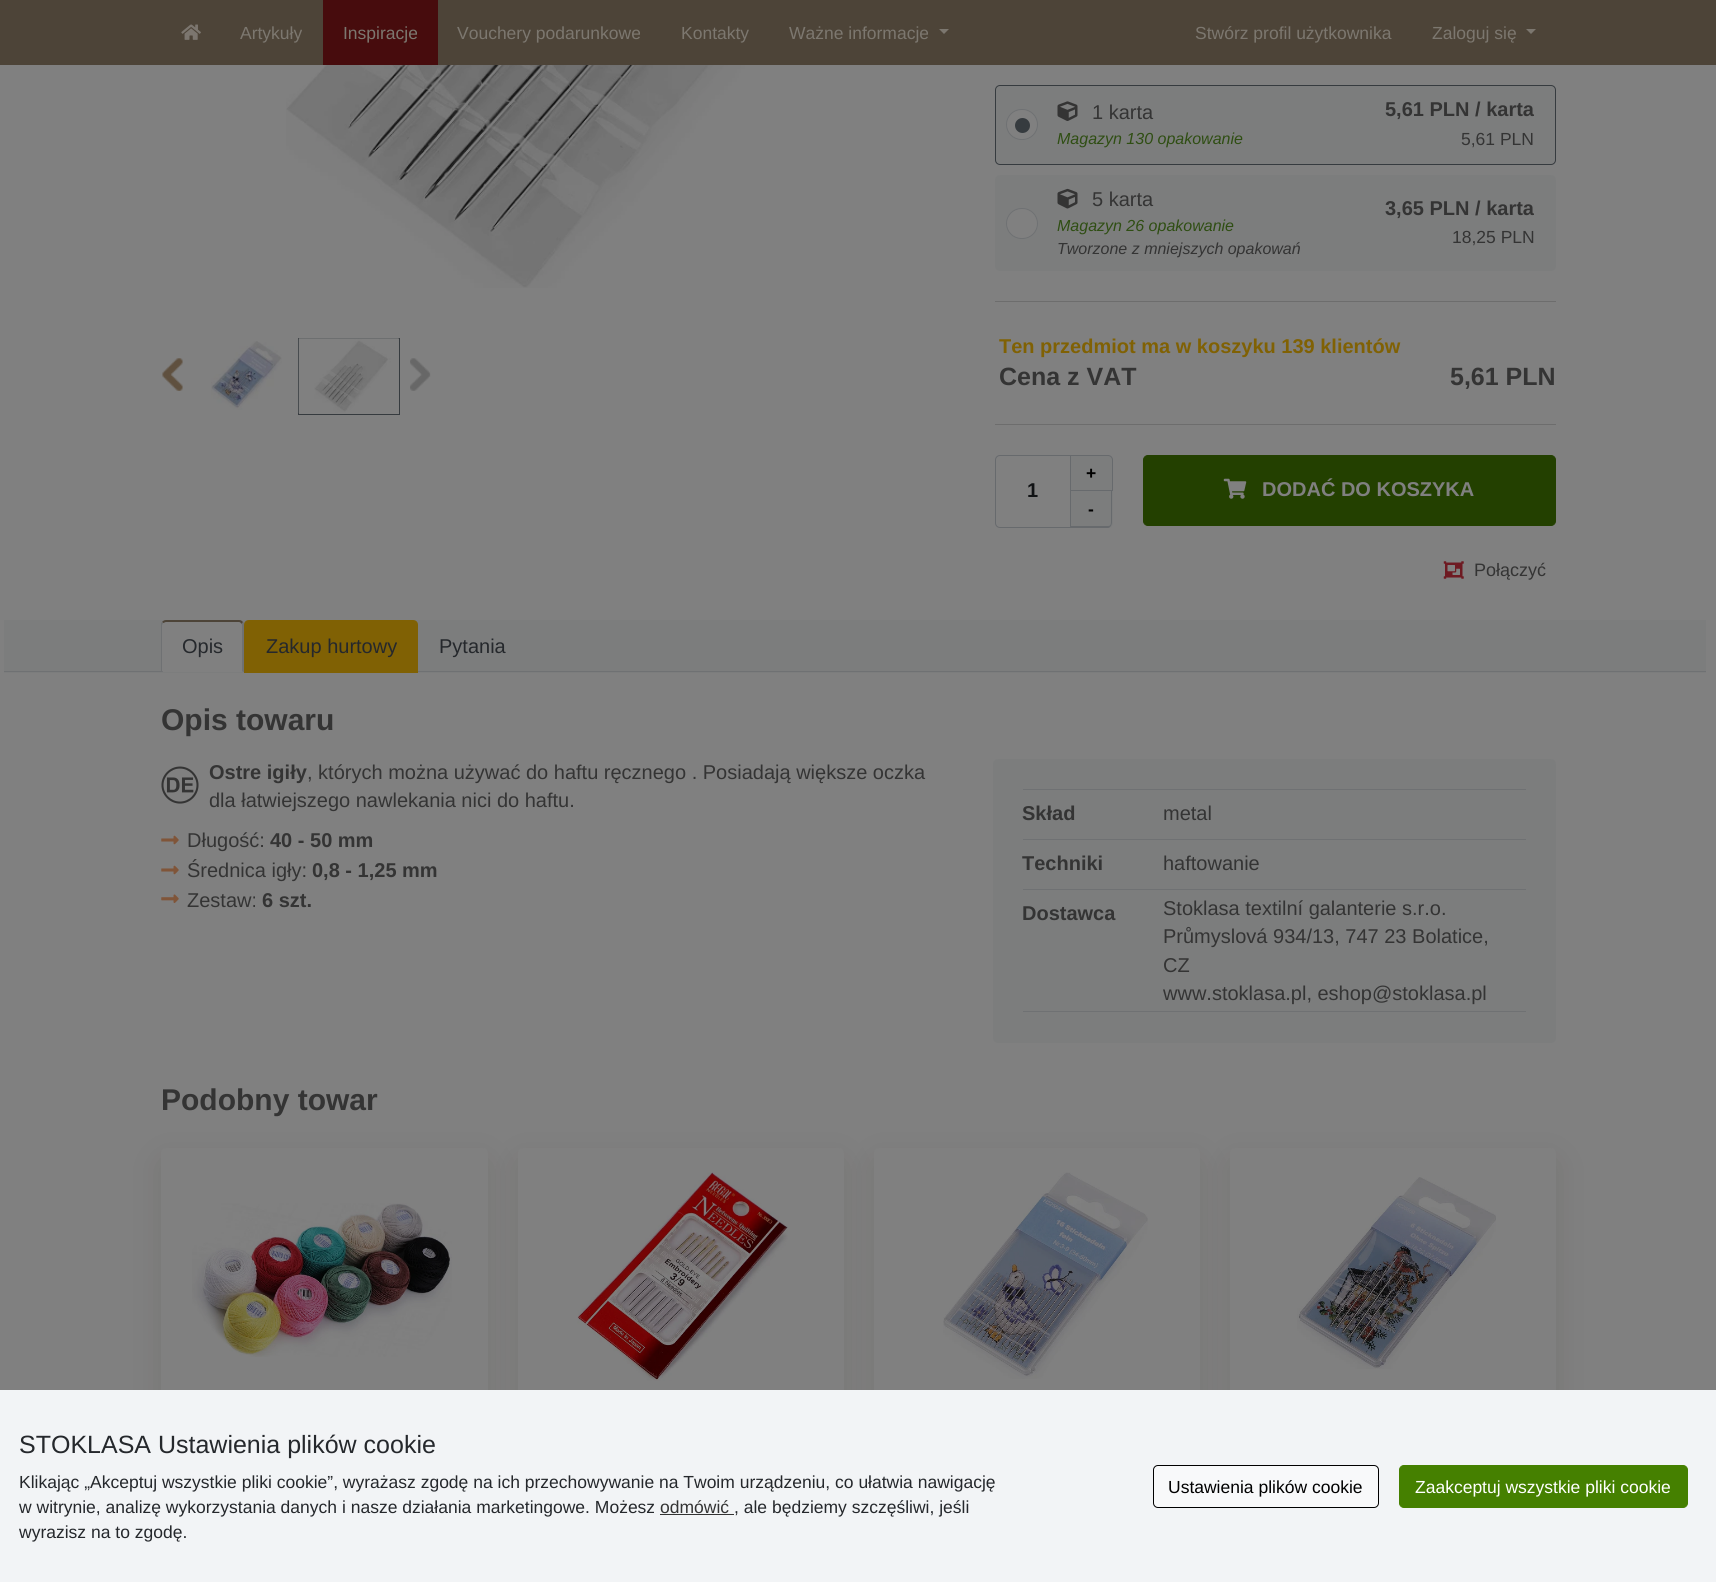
import math
import cairo



def rounded_rect(context, x, y, w, h, r):
    context.new_sub_path()
    for i, (u, v) in enumerate([(x + w - r, y + h - r), (x + r, y + h - r), (x + r, y + r), (x + w - r, y + r)]):
        context.arc(u, v, r, i * math.pi / 2, (i + 1) * math.pi / 2)
    context.close_path()


def draw_shadow(context, x, y, w, h, r, blur, alpha):
    context.push_group_with_content(cairo.Content.ALPHA)
    context.set_operator(cairo.Operator.SOURCE)
    for i in range(15, -16, -2):
        e = blur * i / 6
        if min(w, h) + 2 * e > 0:
            context.set_source_rgba(0, 0, 0, alpha * math.erfc((i - 1) / 8.5) / 2)
            rounded_rect(context, x - e, y - e, w + 2 * e, h + 2 * e, max(0, min(r + e + blur * .6, min(w, h) / 2 + e)))
            context.fill()
    context.mask(context.pop_group())


def draw_image(context, path, x, y, w, h):
    context.save()
    context.set_source_surface(cairo.ImageSurface.create_from_png(path), x, y)
    context.rectangle(x, y, w, h)
    context.fill()
    context.restore()


def draw(context):
    context.set_source_rgb(128 / 255, 128 / 255, 128 / 255)
    context.paint()
    context.set_source_rgb(77 / 255, 68 / 255, 56 / 255)
    context.rectangle(0, 0, 1716, 65)
    context.fill()
    draw_image(context, "images/1.png", 181, 24, 20, 16)
    context.set_source_rgb(71 / 255, 12 / 255, 13 / 255)
    context.rectangle(323, 0, 115, 65)
    context.fill()
    context.set_source_rgb(124 / 255, 119 / 255, 111 / 255)
    context.new_path()
    context.move_to(939, 29)
    context.line_to(949, 29)
    context.line_to(944, 34)
    context.close_path()
    context.fill()
    context.new_path()
    context.move_to(1526, 29)
    context.line_to(1536, 29)
    context.line_to(1531, 34)
    context.close_path()
    context.fill()
    draw_image(context, "images/2.png", 286, 65, 494, 223)
    draw_image(context, "images/3.png", 162, 358, 21, 33)
    draw_image(context, "images/4.png", 211, 341, 71, 69)
    context.rectangle(298.5, 338.5, 101, 76)
    context.set_source_rgb(54 / 255, 59 / 255, 63 / 255)
    context.set_line_width(1)
    context.stroke()
    draw_image(context, "images/5.png", 298, 338, 101, 76)
    draw_image(context, "images/6.png", 410, 358, 21, 33)
    context.set_source_rgb(124 / 255, 125 / 255, 125 / 255)
    rounded_rect(context, 995.5, 85.5, 560, 79, 4.5)
    context.fill_preserve()
    context.set_source_rgb(54 / 255, 59 / 255, 63 / 255)
    context.stroke()
    context.set_source_rgb(128 / 255, 128 / 255, 128 / 255)
    rounded_rect(context, 1006.5, 109.5, 31, 30, 15)
    context.fill_preserve()
    context.set_source_rgb(111 / 255, 113 / 255, 115 / 255)
    context.stroke()
    context.set_source_rgb(54 / 255, 59 / 255, 63 / 255)
    context.arc(1022.5, 125.5, 7.5, 0, 2 * math.pi)
    context.fill()
    draw_image(context, "images/7.png", 1057, 101, 21, 20)
    context.set_source_rgb(124 / 255, 125 / 255, 125 / 255)
    rounded_rect(context, 995, 175, 561, 96, 5)
    context.fill()
    context.set_source_rgb(128 / 255, 128 / 255, 128 / 255)
    rounded_rect(context, 1006.5, 208.5, 31, 30, 15)
    context.fill_preserve()
    context.set_source_rgb(111 / 255, 113 / 255, 115 / 255)
    context.stroke()
    draw_image(context, "images/8.png", 1057, 188, 21, 21)
    context.set_source_rgb(109 / 255, 109 / 255, 109 / 255)
    context.rectangle(995, 301, 561, 1)
    context.fill()
    context.rectangle(995, 424, 561, 1)
    context.fill()
    context.set_source_rgb(124 / 255, 125 / 255, 125 / 255)
    context.new_path()
    context.move_to(1070.5, 455.5)
    context.line_to(1108, 455.5)
    context.curve_to(1110.5, 455.5, 1112.5, 457.5, 1112.5, 460)
    context.line_to(1112.5, 490.5)
    context.line_to(1070.5, 490.5)
    context.close_path()
    context.fill_preserve()
    context.set_source_rgb(103 / 255, 106 / 255, 109 / 255)
    context.stroke()
    context.set_source_rgb(124 / 255, 125 / 255, 125 / 255)
    context.new_path()
    context.move_to(1070, 491)
    context.line_to(1113, 491)
    context.line_to(1113, 523)
    context.curve_to(1113, 526, 1111, 528, 1108, 528)
    context.line_to(1070, 528)
    context.close_path()
    context.fill()
    context.set_source_rgb(103 / 255, 106 / 255, 109 / 255)
    context.set_fill_rule(cairo.FillRule.EVEN_ODD)
    context.new_path()
    context.move_to(1070, 491)
    context.line_to(1112, 491)
    context.line_to(1112, 522)
    context.curve_to(1112, 525, 1110, 528, 1108, 528)
    context.line_to(1070, 528)
    context.close_path()
    context.move_to(1071, 491)
    context.line_to(1111, 491)
    context.line_to(1111, 522)
    context.curve_to(1111, 525, 1110, 526, 1108, 526)
    context.line_to(1071, 526)
    context.close_path()
    context.fill()
    context.new_path()
    context.move_to(1000, 455.5)
    context.line_to(1070.5, 455.5)
    context.line_to(1070.5, 527.5)
    context.line_to(1000, 527.5)
    context.curve_to(997.5, 527.5, 995.5, 525.5, 995.5, 523)
    context.line_to(995.5, 460)
    context.curve_to(995.5, 457.5, 997.5, 455.5, 1000, 455.5)
    context.close_path()
    context.stroke()
    context.set_source_rgb(35 / 255, 64 / 255, 0)
    rounded_rect(context, 1143.5, 455.5, 412, 70, 4.5)
    context.fill_preserve()
    context.stroke()
    draw_image(context, "images/9.png", 1223, 478, 24, 21)
    draw_image(context, "images/10.png", 1443, 561, 21, 18)
    context.set_source_rgb(124 / 255, 125 / 255, 125 / 255)
    context.rectangle(4, 620, 1702, 53)
    context.fill()
    context.set_source_rgb(111 / 255, 113 / 255, 115 / 255)
    context.rectangle(4, 671, 1702, 1)
    context.fill()
    context.set_source_rgb(124 / 255, 125 / 255, 125 / 255)
    context.rectangle(161, 671, 1395, 1)
    context.fill()
    context.set_source_rgb(111 / 255, 113 / 255, 115 / 255)
    context.rectangle(161, 671, 1395, 1)
    context.fill()
    context.set_source_rgb(128 / 255, 128 / 255, 128 / 255)
    context.set_fill_rule(cairo.FillRule.WINDING)
    context.new_path()
    context.move_to(166, 622)
    context.line_to(239, 622)
    context.curve_to(241, 622, 242, 624, 242, 625)
    context.line_to(242, 671)
    context.line_to(162, 671)
    context.line_to(162, 625)
    context.curve_to(162, 624, 164, 622, 166, 622)
    context.close_path()
    context.fill()
    context.set_source_rgb(77 / 255, 68 / 255, 56 / 255)
    context.new_path()
    context.move_to(166, 620)
    context.curve_to(164, 620, 163, 621, 162, 622)
    context.line_to(163, 623)
    context.curve_to(164, 623, 165, 622, 166, 622)
    context.line_to(239, 622)
    context.curve_to(240, 622, 241, 623, 242, 624)
    context.line_to(243, 622)
    context.curve_to(242, 621, 241, 620, 239, 620)
    context.close_path()
    context.fill()
    context.set_source_rgb(111 / 255, 113 / 255, 115 / 255)
    context.new_path()
    context.move_to(244, 672)
    context.line_to(242, 671)
    context.line_to(242, 624)
    context.line_to(243, 622)
    context.line_to(244, 623)
    context.close_path()
    context.fill()
    context.set_source_rgb(128 / 255, 128 / 255, 128 / 255)
    context.new_path()
    context.move_to(243, 672)
    context.line_to(162, 672)
    context.line_to(163, 671)
    context.line_to(242, 671)
    context.close_path()
    context.fill()
    context.set_source_rgb(111 / 255, 113 / 255, 115 / 255)
    context.new_path()
    context.move_to(161, 623)
    context.line_to(162, 622)
    context.line_to(163, 623)
    context.line_to(162, 625)
    context.line_to(162, 671)
    context.line_to(163, 671)
    context.line_to(162, 672)
    context.line_to(161, 672)
    context.close_path()
    context.fill()
    context.set_source_rgb(128 / 255, 97 / 255, 4 / 255)
    context.new_path()
    context.move_to(249, 620)
    context.line_to(413, 620)
    context.curve_to(416, 620, 418, 622, 418, 625)
    context.line_to(418, 673)
    context.line_to(244, 673)
    context.line_to(244, 625)
    context.curve_to(244, 622, 246, 620, 249, 620)
    context.close_path()
    context.fill()
    draw_image(context, "images/11.png", 161, 766, 38, 38)
    draw_image(context, "images/12.png", 161, 835, 18, 10)
    draw_image(context, "images/12.png", 161, 865, 18, 10)
    draw_image(context, "images/13.png", 161, 894, 18, 9)
    context.set_source_rgb(124 / 255, 125 / 255, 125 / 255)
    rounded_rect(context, 993, 759, 563, 284, 5)
    context.fill()
    context.set_source_rgb(111 / 255, 113 / 255, 115 / 255)
    context.rectangle(1023, 789, 503, 1)
    context.fill()
    context.rectangle(1023, 839, 503, 1)
    context.fill()
    context.rectangle(1023, 889, 503, 1)
    context.fill()
    context.rectangle(1023, 1011, 503, 1)
    context.fill()
    context.set_source_rgb(27 / 255, 15 / 255, 2 / 255)
    draw_shadow(context, 161, 1160, 327, 410, 5, 15.5, 0.1)
    context.set_source_rgb(128 / 255, 128 / 255, 128 / 255)
    rounded_rect(context, 161, 1148, 327, 410, 5)
    context.fill()
    draw_image(context, "images/14.png", 192, 1203, 260, 154)
    context.set_source_rgb(27 / 255, 15 / 255, 2 / 255)
    draw_shadow(context, 518, 1160, 326, 410, 5, 15.5, 0.1)
    context.set_source_rgb(128 / 255, 128 / 255, 128 / 255)
    rounded_rect(context, 518, 1148, 326, 410, 5)
    context.fill()
    draw_image(context, "images/15.png", 577, 1172, 211, 209)
    context.set_source_rgb(27 / 255, 15 / 255, 2 / 255)
    draw_shadow(context, 874, 1160, 326, 410, 5, 15.5, 0.1)
    context.set_source_rgb(128 / 255, 128 / 255, 128 / 255)
    rounded_rect(context, 874, 1148, 326, 410, 5)
    context.fill()
    draw_image(context, "images/16.png", 943, 1172, 205, 207)
    context.set_source_rgb(27 / 255, 15 / 255, 2 / 255)
    draw_shadow(context, 1230, 1160, 326, 410, 5, 15.5, 0.1)
    context.set_source_rgb(128 / 255, 128 / 255, 128 / 255)
    rounded_rect(context, 1230, 1148, 326, 410, 5)
    context.fill()
    draw_image(context, "images/17.png", 1297, 1177, 199, 192)
    context.set_source_rgb(242 / 255, 244 / 255, 246 / 255)
    context.rectangle(0, 1390, 1716, 192)
    context.fill()
    context.set_source_rgb(51 / 255, 51 / 255, 51 / 255)
    context.rectangle(660, 1514, 74, 1)
    context.fill()
    context.set_source_rgb(248 / 255, 249 / 255, 250 / 255)
    rounded_rect(context, 1153.5, 1465.5, 225, 42, 4.5)
    context.fill_preserve()
    context.set_source_rgb(0, 0, 0)
    context.stroke()
    context.set_source_rgb(69 / 255, 128 / 255, 0)
    rounded_rect(context, 1399.5, 1465.5, 288, 42, 4.5)
    context.fill_preserve()
    context.stroke()
    context.select_font_face("Liberation Sans")
    context.set_font_size(17.5)
    context.set_source_rgb(124 / 255, 119 / 255, 111 / 255)
    context.move_to(240, 39)
    context.show_text("Artykuły")
    context.move_to(343, 39)
    context.show_text("Inspiracje")
    context.move_to(457, 39)
    context.show_text("Vouchery podarunkowe")
    context.move_to(681, 39)
    context.show_text("Kontakty")
    context.move_to(789, 39)
    context.show_text("Ważne informacje")
    context.move_to(1195, 39)
    context.show_text("Stwórz profil użytkownika")
    context.move_to(1432, 39)
    context.show_text("Zaloguj się")
    context.set_font_size(20)
    context.set_source_rgb(52 / 255, 52 / 255, 52 / 255)
    context.move_to(1092, 119)
    context.show_text("1 karta")
    context.select_font_face("Liberation Sans", cairo.FontSlant.ITALIC)
    context.set_font_size(16)
    context.set_source_rgb(47 / 255, 78 / 255, 19 / 255)
    context.move_to(1057, 144)
    context.show_text("Magazyn 130 opakowanie")
    context.select_font_face("Liberation Sans", cairo.FontSlant.NORMAL, cairo.FontWeight.BOLD)
    context.set_font_size(20)
    context.set_source_rgb(52 / 255, 52 / 255, 52 / 255)
    context.move_to(1385, 116)
    context.show_text("5,61 PLN / karta")
    context.select_font_face("Liberation Sans")
    context.set_font_size(17.5)
    context.move_to(1461, 145)
    context.show_text("5,61 PLN")
    context.set_font_size(20)
    context.move_to(1092, 206)
    context.show_text("5 karta")
    context.select_font_face("Liberation Sans", cairo.FontSlant.ITALIC)
    context.set_font_size(16)
    context.set_source_rgb(47 / 255, 78 / 255, 19 / 255)
    context.move_to(1057, 231)
    context.show_text("Magazyn 26 opakowanie")
    context.set_source_rgb(52 / 255, 52 / 255, 52 / 255)
    context.move_to(1057, 254)
    context.show_text("Tworzone z mniejszych opakowań")
    context.select_font_face("Liberation Sans", cairo.FontSlant.NORMAL, cairo.FontWeight.BOLD)
    context.set_font_size(20)
    context.move_to(1385, 215)
    context.show_text("3,65 PLN / karta")
    context.select_font_face("Liberation Sans")
    context.set_font_size(17.5)
    context.move_to(1452, 243)
    context.show_text("18,25 PLN")
    context.select_font_face("Liberation Sans", cairo.FontSlant.NORMAL, cairo.FontWeight.BOLD)
    context.set_font_size(20)
    context.set_source_rgb(128 / 255, 97 / 255, 4 / 255)
    context.move_to(999, 353)
    context.show_text("Ten przedmiot ma w koszyku 139 klientów")
    context.set_font_size(25)
    context.set_source_rgb(52 / 255, 52 / 255, 52 / 255)
    context.move_to(999, 385)
    context.show_text("Cena z VAT")
    context.move_to(1450, 385)
    context.show_text("5,61 PLN")
    context.set_font_size(20)
    context.set_source_rgb(17 / 255, 19 / 255, 21 / 255)
    context.move_to(1027, 497)
    context.show_text("1")
    context.set_font_size(17.5)
    context.set_source_rgb(0, 0, 0)
    context.move_to(1086, 479)
    context.show_text("+")
    context.move_to(1088, 515)
    context.show_text("-")
    context.set_font_size(20)
    context.set_source_rgb(128 / 255, 128 / 255, 128 / 255)
    context.move_to(1262, 496)
    context.show_text("DODAĆ DO KOSZYKA")
    context.select_font_face("Liberation Sans")
    context.set_font_size(18)
    context.set_source_rgb(52 / 255, 52 / 255, 52 / 255)
    context.move_to(1474, 576)
    context.show_text("Połączyć")
    context.set_font_size(20)
    context.set_source_rgb(37 / 255, 40 / 255, 44 / 255)
    context.move_to(182, 653)
    context.show_text("Opis")
    context.move_to(266, 653)
    context.show_text("Zakup hurtowy")
    context.move_to(439, 653)
    context.show_text("Pytania")
    context.select_font_face("Liberation Sans", cairo.FontSlant.NORMAL, cairo.FontWeight.BOLD)
    context.set_font_size(30)
    context.set_source_rgb(52 / 255, 52 / 255, 52 / 255)
    context.move_to(161, 730)
    context.show_text("Opis towaru")
    context.set_font_size(20)
    context.move_to(209, 779)
    context.show_text("Ostre igiły")
    context.select_font_face("Liberation Sans")
    context.move_to(307, 779)
    context.show_text(", których można używać do haftu ręcznego . Posiadają większe oczka")
    context.move_to(209, 807)
    context.show_text("dla łatwiejszego nawlekania nici do haftu.")
    context.move_to(187, 847)
    context.show_text("Długość:")
    context.select_font_face("Liberation Sans", cairo.FontSlant.NORMAL, cairo.FontWeight.BOLD)
    context.move_to(270, 847)
    context.show_text("40 - 50 mm")
    context.select_font_face("Liberation Sans")
    context.move_to(187, 877)
    context.show_text("Średnica igły:")
    context.select_font_face("Liberation Sans", cairo.FontSlant.NORMAL, cairo.FontWeight.BOLD)
    context.move_to(312, 877)
    context.show_text("0,8 - 1,25 mm")
    context.select_font_face("Liberation Sans")
    context.move_to(187, 907)
    context.show_text("Zestaw:")
    context.select_font_face("Liberation Sans", cairo.FontSlant.NORMAL, cairo.FontWeight.BOLD)
    context.move_to(262, 907)
    context.show_text("6 szt.")
    context.move_to(1022, 820)
    context.show_text("Skład")
    context.select_font_face("Liberation Sans")
    context.move_to(1163, 820)
    context.show_text("metal")
    context.select_font_face("Liberation Sans", cairo.FontSlant.NORMAL, cairo.FontWeight.BOLD)
    context.move_to(1022, 870)
    context.show_text("Techniki")
    context.select_font_face("Liberation Sans")
    context.move_to(1163, 870)
    context.show_text("haftowanie")
    context.select_font_face("Liberation Sans", cairo.FontSlant.NORMAL, cairo.FontWeight.BOLD)
    context.move_to(1022, 920)
    context.show_text("Dostawca")
    context.select_font_face("Liberation Sans")
    context.move_to(1163, 915)
    context.show_text("Stoklasa textilní galanterie s.r.o.")
    context.move_to(1163, 943)
    context.show_text("Průmyslová 934/13, 747 23 Bolatice,")
    context.move_to(1163, 972)
    context.show_text("CZ")
    context.move_to(1163, 1000)
    context.show_text("www.stoklasa.pl, eshop@stoklasa.pl")
    context.select_font_face("Liberation Sans", cairo.FontSlant.NORMAL, cairo.FontWeight.BOLD)
    context.set_font_size(30)
    context.move_to(161, 1110)
    context.show_text("Podobny towar")
    context.select_font_face("Liberation Sans")
    context.set_font_size(25)
    context.set_source_rgb(37 / 255, 40 / 255, 44 / 255)
    context.move_to(19, 1453)
    context.show_text("STOKLASA Ustawienia plików cookie")
    context.set_font_size(17.5)
    context.move_to(19, 1488)
    context.show_text("Klikając „Akceptuj wszystkie pliki cookie”, wyrażasz zgodę na ich przechowywanie na Twoim urządzeniu, co ułatwia nawigację")
    context.move_to(19, 1513)
    context.show_text("w witrynie, analizę wykorzystania danych i nasze działania marketingowe. Możesz")
    context.set_source_rgb(52 / 255, 52 / 255, 52 / 255)
    context.move_to(660, 1513)
    context.show_text("odmówić")
    context.set_source_rgb(37 / 255, 40 / 255, 44 / 255)
    context.move_to(734, 1513)
    context.show_text(", ale będziemy szczęśliwi, jeśli")
    context.move_to(19, 1538)
    context.show_text("wyrazisz na to zgodę.")
    context.set_source_rgb(0, 0, 0)
    context.move_to(1168, 1493)
    context.show_text("Ustawienia plików cookie")
    context.set_source_rgb(1, 1, 1)
    context.move_to(1415, 1493)
    context.show_text("Zaakceptuj wszystkie pliki cookie")


surface = cairo.ImageSurface(cairo.Format.RGB24, 1716, 1582)
context = cairo.Context(surface)
options = cairo.FontOptions()
options.set_hint_metrics(cairo.HintMetrics.OFF)
options.set_hint_style(cairo.HintStyle.NONE)
context.set_font_options(options)
context.set_miter_limit(4)
draw(context)
surface.write_to_png("out.png")
